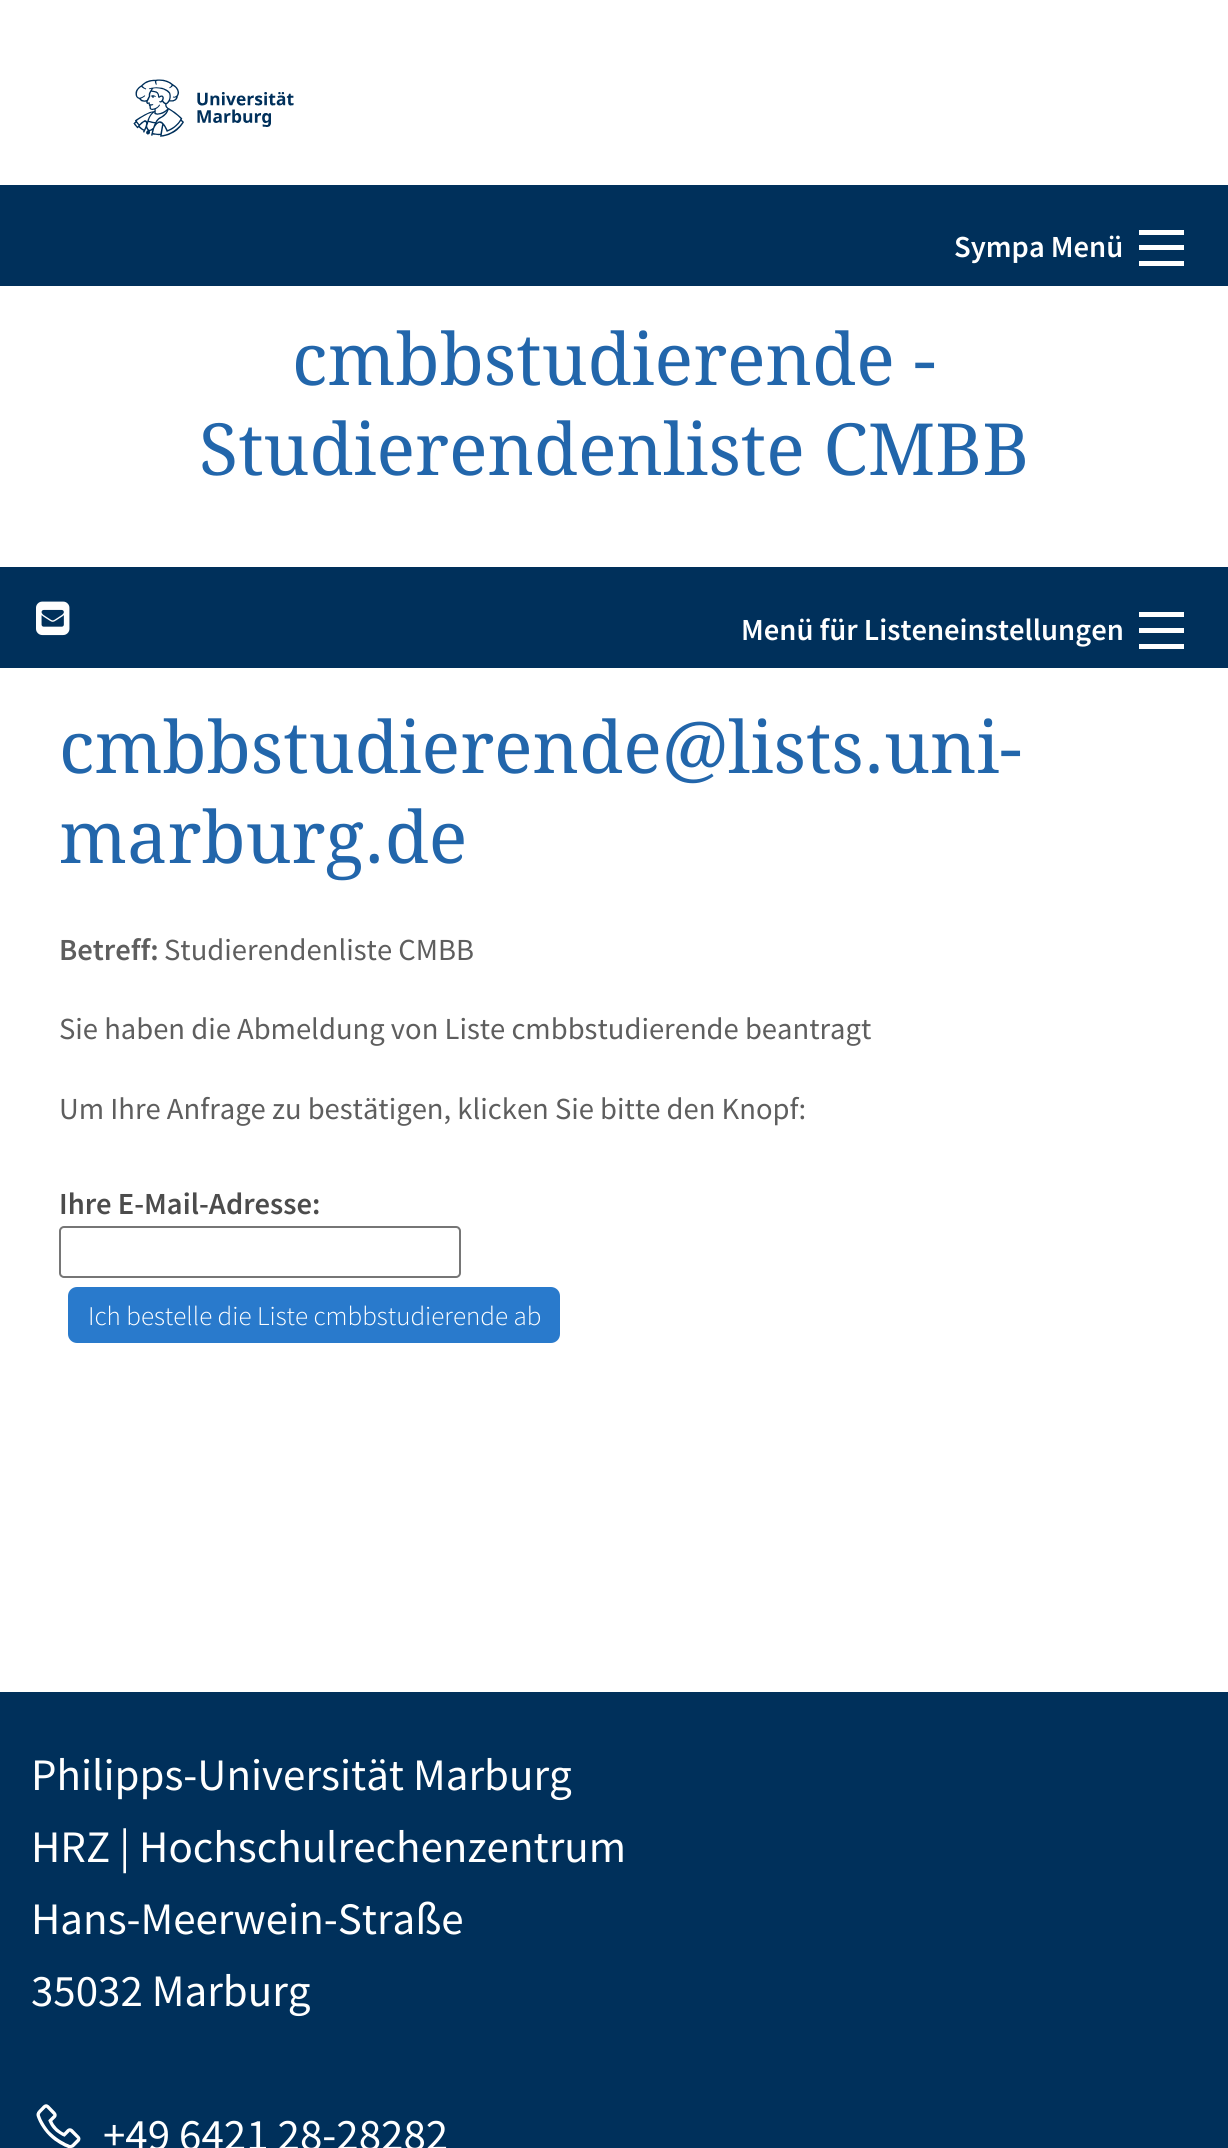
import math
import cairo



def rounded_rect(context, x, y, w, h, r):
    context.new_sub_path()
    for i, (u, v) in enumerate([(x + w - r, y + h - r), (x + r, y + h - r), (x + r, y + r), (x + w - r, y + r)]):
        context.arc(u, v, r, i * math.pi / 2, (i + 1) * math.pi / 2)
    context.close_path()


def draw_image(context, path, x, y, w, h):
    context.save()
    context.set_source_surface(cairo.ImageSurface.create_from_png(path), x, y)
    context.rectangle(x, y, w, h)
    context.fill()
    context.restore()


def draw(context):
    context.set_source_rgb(1, 1, 1)
    context.paint()
    draw_image(context, "images/1.png", 133, 79, 161, 58)
    context.set_source_rgb(0, 48 / 255, 91 / 255)
    context.rectangle(0, 185, 1228, 101)
    context.fill()
    context.set_source_rgb(254 / 255, 254 / 255, 254 / 255)
    context.rectangle(1139, 261, 45, 5)
    context.fill()
    context.rectangle(1139, 245, 45, 5)
    context.fill()
    context.rectangle(1139, 230, 45, 5)
    context.fill()
    context.set_source_rgb(0, 48 / 255, 91 / 255)
    context.rectangle(0, 567, 1228, 101)
    context.fill()
    draw_image(context, "images/2.png", 36, 601, 34, 35)
    context.set_source_rgb(254 / 255, 254 / 255, 254 / 255)
    context.rectangle(1139, 644, 45, 5)
    context.fill()
    context.rectangle(1139, 628, 45, 5)
    context.fill()
    context.rectangle(1139, 612, 45, 5)
    context.fill()
    rounded_rect(context, 60, 1227, 400, 50, 4)
    context.set_source_rgb(118 / 255, 118 / 255, 118 / 255)
    context.stroke()
    context.set_source_rgb(41 / 255, 122 / 255, 204 / 255)
    rounded_rect(context, 68, 1287, 492, 56, 9)
    context.fill()
    context.set_source_rgb(0, 48 / 255, 91 / 255)
    context.rectangle(0, 1692, 1228, 456)
    context.fill()
    draw_image(context, "images/3.png", 36, 2104, 45, 44)
    context.select_font_face("Source Sans Pro SemiBold")
    context.set_font_size(30.6)
    context.set_source_rgb(1, 1, 1)
    context.move_to(954, 257)
    context.show_text("Sympa Menü")
    context.select_font_face("Droid Serif")
    context.set_font_size(72)
    context.set_source_rgb(34 / 255, 102 / 255, 171 / 255)
    context.move_to(292, 385)
    context.show_text("cmbbstudierende -")
    context.move_to(199, 475)
    context.show_text("Studierendenliste CMBB")
    context.select_font_face("Source Sans Pro SemiBold")
    context.set_font_size(30.6)
    context.set_source_rgb(1, 1, 1)
    context.move_to(741, 640)
    context.show_text("Menü für Listeneinstellungen")
    context.select_font_face("Droid Serif")
    context.set_font_size(72)
    context.set_source_rgb(34 / 255, 102 / 255, 171 / 255)
    context.move_to(59, 773)
    context.show_text("cmbbstudierende@lists.uni-")
    context.move_to(59, 863)
    context.show_text("marburg.de")
    context.select_font_face("Source Sans Pro SemiBold")
    context.set_font_size(30.6)
    context.set_source_rgb(94 / 255, 94 / 255, 94 / 255)
    context.move_to(59, 960)
    context.show_text("Betreff:")
    context.select_font_face("Source Sans Pro")
    context.move_to(164, 960)
    context.show_text("Studierendenliste CMBB")
    context.move_to(59, 1039)
    context.show_text("Sie haben die Abmeldung von Liste cmbbstudierende beantragt")
    context.move_to(59, 1119)
    context.show_text("Um Ihre Anfrage zu bestätigen, klicken Sie bitte den Knopf:")
    context.select_font_face("Source Sans Pro SemiBold")
    context.set_source_rgb(76 / 255, 76 / 255, 76 / 255)
    context.move_to(59, 1214)
    context.show_text("Ihre E-Mail-Adresse:")
    context.select_font_face("Source Sans Pro Light")
    context.set_font_size(27)
    context.set_source_rgb(1, 1, 1)
    context.move_to(88, 1325)
    context.show_text("Ich bestelle die Liste cmbbstudierende ab")
    context.select_font_face("Source Sans Pro")
    context.set_font_size(45)
    context.move_to(31, 1790)
    context.show_text("Philipps-Universität Marburg")
    context.move_to(31, 1862)
    context.show_text("HRZ | Hochschulrechenzentrum")
    context.move_to(31, 1934)
    context.show_text("Hans-Meerwein-Straße")
    context.move_to(31, 2006)
    context.show_text("35032 Marburg")
    context.move_to(103, 2150)
    context.show_text("+49 6421 28-28282")


surface = cairo.ImageSurface(cairo.Format.RGB24, 1228, 2148)
context = cairo.Context(surface)
options = cairo.FontOptions()
options.set_hint_metrics(cairo.HintMetrics.OFF)
options.set_hint_style(cairo.HintStyle.NONE)
context.set_font_options(options)
context.set_miter_limit(4)
draw(context)
surface.write_to_png("out.png")
